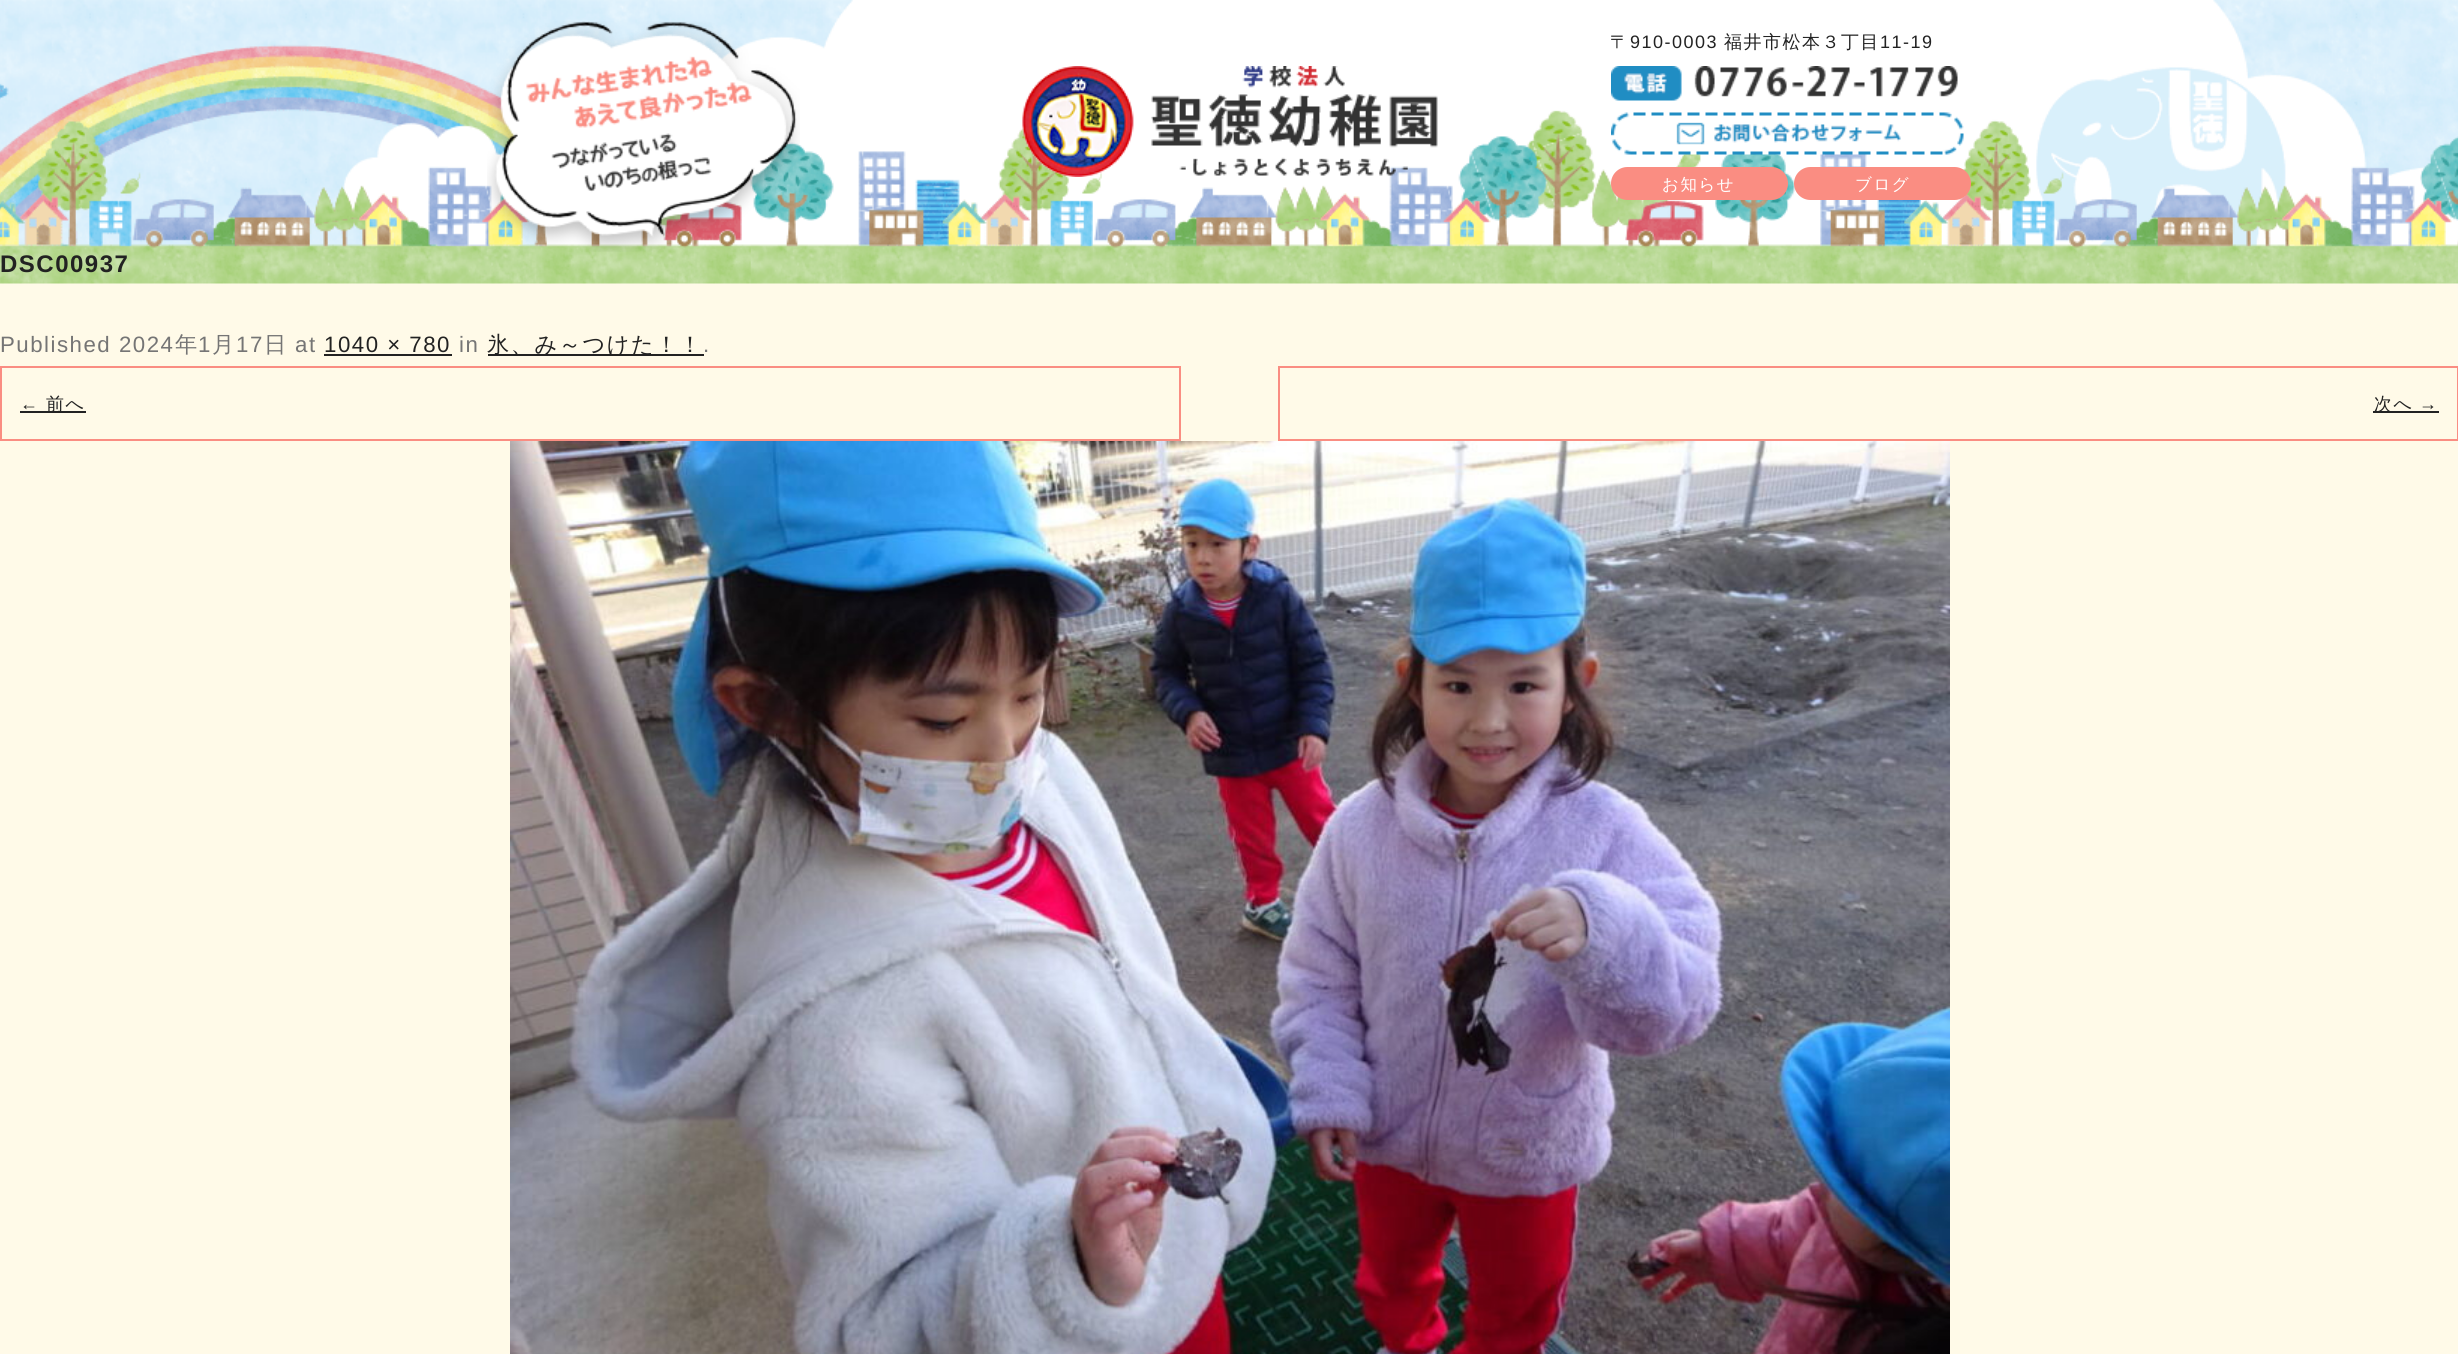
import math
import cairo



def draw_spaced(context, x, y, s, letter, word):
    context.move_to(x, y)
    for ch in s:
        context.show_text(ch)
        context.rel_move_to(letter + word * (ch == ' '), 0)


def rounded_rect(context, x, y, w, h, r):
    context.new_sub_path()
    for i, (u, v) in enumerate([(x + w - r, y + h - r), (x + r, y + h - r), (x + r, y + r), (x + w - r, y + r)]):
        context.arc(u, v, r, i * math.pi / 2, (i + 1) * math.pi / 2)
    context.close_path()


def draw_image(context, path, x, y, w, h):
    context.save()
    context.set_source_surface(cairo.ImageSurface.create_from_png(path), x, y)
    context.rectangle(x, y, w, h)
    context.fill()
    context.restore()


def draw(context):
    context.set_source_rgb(1, 250 / 255, 232 / 255)
    context.paint()
    draw_image(context, "images/1.png", 0, 0, 2458, 284)
    draw_image(context, "images/2.png", 487, 21, 313, 231)
    draw_image(context, "images/3.png", 1022, 66, 416, 111)
    draw_image(context, "images/4.png", 1611, 66, 347, 35)
    draw_image(context, "images/5.png", 1611, 112, 353, 43)
    context.set_source_rgb(250 / 255, 141 / 255, 130 / 255)
    rounded_rect(context, 1611, 167, 177, 33, 16.5)
    context.fill()
    rounded_rect(context, 1794, 167, 177, 33, 16.5)
    context.fill()
    context.set_source_rgb(34 / 255, 34 / 255, 34 / 255)
    context.rectangle(324, 354, 128, 2)
    context.fill()
    context.rectangle(488, 354, 216, 2)
    context.fill()
    context.rectangle(1, 367, 1179, 73)
    context.set_source_rgb(250 / 255, 141 / 255, 130 / 255)
    context.stroke()
    context.set_source_rgb(34 / 255, 34 / 255, 34 / 255)
    context.rectangle(20, 411, 66, 2)
    context.fill()
    context.rectangle(1279, 367, 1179, 73)
    context.set_source_rgb(250 / 255, 141 / 255, 130 / 255)
    context.stroke()
    context.set_source_rgb(34 / 255, 34 / 255, 34 / 255)
    context.rectangle(2373, 411, 66, 2)
    context.fill()
    draw_image(context, "images/6.png", 510, 441, 1440, 913)
    context.select_font_face("WenQuanYi Zen Hei Medium")
    context.set_font_size(18)
    draw_spaced(context, 1610, 48, "〒", 1.5, 0)
    context.select_font_face("Liberation Sans")
    draw_spaced(context, 1630, 48, "910-0003", 1.5, 0)
    context.select_font_face("WenQuanYi Zen Hei Medium")
    draw_spaced(context, 1724, 48, "福井市松本３丁目", 1.5, 0)
    context.select_font_face("Liberation Sans")
    draw_spaced(context, 1880, 48, "11-19", 1.5, 0)
    context.select_font_face("WenQuanYi Zen Hei Medium")
    context.set_font_size(16.5)
    context.set_source_rgb(1, 1, 1)
    draw_spaced(context, 1662, 190, "お知らせ", 1.5, 0)
    draw_spaced(context, 1855, 190, "ブログ", 1.5, 0)
    context.select_font_face("Liberation Sans", cairo.FontSlant.NORMAL, cairo.FontWeight.BOLD)
    context.set_font_size(24)
    context.set_source_rgb(34 / 255, 34 / 255, 34 / 255)
    draw_spaced(context, 0, 272, "DSC00937", 1.5, 0)
    context.select_font_face("Liberation Sans")
    context.set_font_size(22.25)
    context.set_source_rgb(117 / 255, 117 / 255, 117 / 255)
    draw_spaced(context, 0, 352, "Published 2024", 1.5, 0)
    context.select_font_face("WenQuanYi Zen Hei Medium")
    draw_spaced(context, 175, 352, "年", 1.5, 0)
    context.select_font_face("Liberation Sans")
    draw_spaced(context, 198, 352, "1", 1.5, 0)
    context.select_font_face("WenQuanYi Zen Hei Medium")
    draw_spaced(context, 212, 352, "月", 1.5, 0)
    context.select_font_face("Liberation Sans")
    draw_spaced(context, 236, 352, "17", 1.5, 0)
    context.select_font_face("WenQuanYi Zen Hei Medium")
    draw_spaced(context, 264, 352, "日", 1.5, 0)
    context.select_font_face("Liberation Sans")
    draw_spaced(context, 295, 352, "at", 1.5, 0)
    context.set_source_rgb(34 / 255, 34 / 255, 34 / 255)
    draw_spaced(context, 324, 352, "1040 × 780", 1.5, 0)
    context.set_source_rgb(117 / 255, 117 / 255, 117 / 255)
    draw_spaced(context, 459, 352, "in", 1.5, 0)
    context.select_font_face("WenQuanYi Zen Hei Medium")
    context.set_source_rgb(34 / 255, 34 / 255, 34 / 255)
    draw_spaced(context, 487, 352, "氷、み～つけた！！", 1.5, 0)
    context.select_font_face("Liberation Sans")
    context.set_source_rgb(117 / 255, 117 / 255, 117 / 255)
    draw_spaced(context, 703, 352, ".", 1.5, 0)
    context.set_font_size(18)
    context.set_source_rgb(34 / 255, 34 / 255, 34 / 255)
    draw_spaced(context, 20, 410, "←", 1.5, 0)
    context.select_font_face("WenQuanYi Zen Hei Medium")
    draw_spaced(context, 46, 410, "前へ", 1.5, 0)
    draw_spaced(context, 2374, 410, "次へ", 1.5, 0)
    context.select_font_face("Liberation Sans")
    draw_spaced(context, 2419, 410, "→", 1.5, 0)


surface = cairo.ImageSurface(cairo.Format.RGB24, 2458, 1354)
context = cairo.Context(surface)
options = cairo.FontOptions()
options.set_hint_metrics(cairo.HintMetrics.OFF)
options.set_hint_style(cairo.HintStyle.NONE)
context.set_font_options(options)
context.set_miter_limit(4)
draw(context)
surface.write_to_png("out.png")
